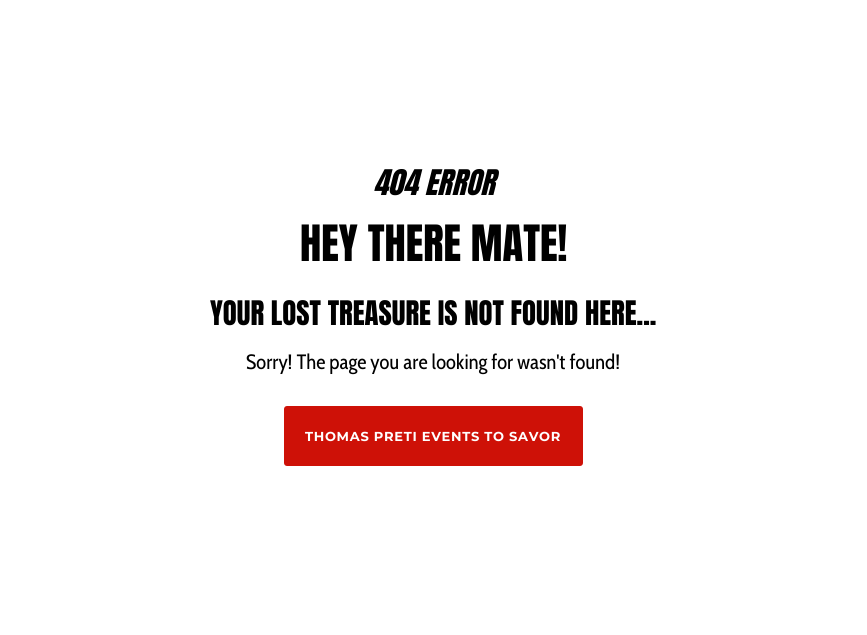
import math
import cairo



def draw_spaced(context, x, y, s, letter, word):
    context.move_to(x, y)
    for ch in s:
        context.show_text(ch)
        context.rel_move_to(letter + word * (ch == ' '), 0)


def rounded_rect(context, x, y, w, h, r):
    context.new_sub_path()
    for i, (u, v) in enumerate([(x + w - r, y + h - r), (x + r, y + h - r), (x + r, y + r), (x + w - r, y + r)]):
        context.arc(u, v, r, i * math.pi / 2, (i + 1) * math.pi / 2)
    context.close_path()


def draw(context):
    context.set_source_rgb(1, 1, 1)
    context.paint()
    context.set_source_rgb(206 / 255, 17 / 255, 7 / 255)
    rounded_rect(context, 284, 406, 299, 60, 3)
    context.fill()
    context.select_font_face("Anton", cairo.FontSlant.ITALIC)
    context.set_font_size(30)
    context.set_source_rgb(0, 0, 0)
    context.move_to(373, 195)
    context.show_text("404 ERROR")
    context.select_font_face("Anton")
    context.set_font_size(42.5)
    context.move_to(300, 261)
    context.show_text("HEY THERE MATE!")
    context.set_font_size(28.75)
    context.move_to(210, 325)
    context.show_text("YOUR LOST TREASURE IS NOT FOUND HERE...")
    context.select_font_face("Cabin Condensed")
    context.set_font_size(20.75)
    context.move_to(246, 369)
    context.show_text("Sorry! The page you are looking for wasn't found!")
    context.select_font_face("Montserrat Thin")
    context.set_font_size(13)
    context.set_source_rgb(1, 1, 1)
    draw_spaced(context, 305, 441, "THOMAS PRETI EVENTS TO SAVOR", 0.7, 0)


surface = cairo.ImageSurface(cairo.Format.RGB24, 867, 635)
context = cairo.Context(surface)
options = cairo.FontOptions()
options.set_hint_metrics(cairo.HintMetrics.OFF)
options.set_hint_style(cairo.HintStyle.NONE)
context.set_font_options(options)
context.set_miter_limit(4)
draw(context)
surface.write_to_png("out.png")
